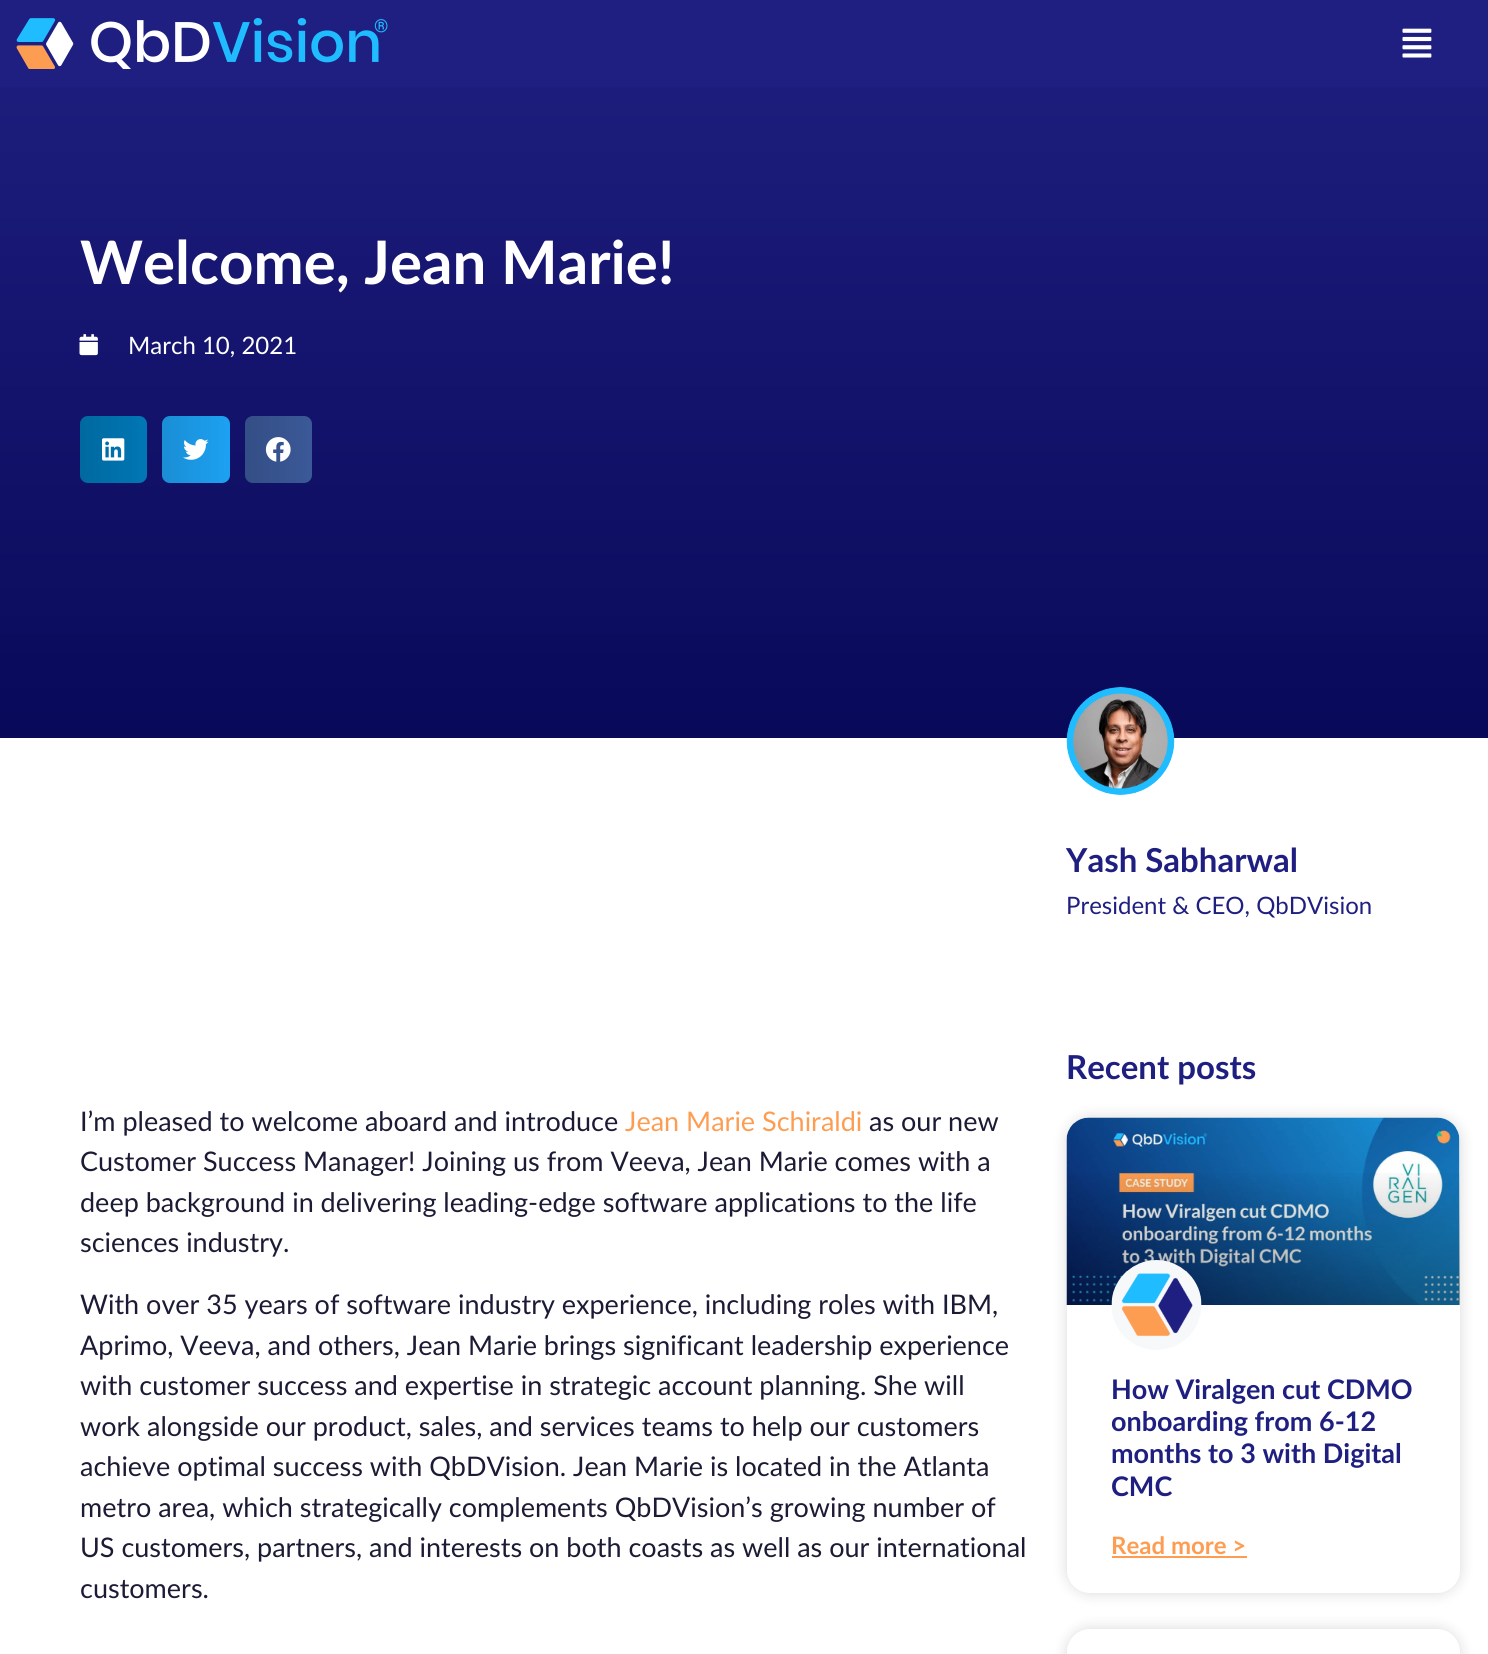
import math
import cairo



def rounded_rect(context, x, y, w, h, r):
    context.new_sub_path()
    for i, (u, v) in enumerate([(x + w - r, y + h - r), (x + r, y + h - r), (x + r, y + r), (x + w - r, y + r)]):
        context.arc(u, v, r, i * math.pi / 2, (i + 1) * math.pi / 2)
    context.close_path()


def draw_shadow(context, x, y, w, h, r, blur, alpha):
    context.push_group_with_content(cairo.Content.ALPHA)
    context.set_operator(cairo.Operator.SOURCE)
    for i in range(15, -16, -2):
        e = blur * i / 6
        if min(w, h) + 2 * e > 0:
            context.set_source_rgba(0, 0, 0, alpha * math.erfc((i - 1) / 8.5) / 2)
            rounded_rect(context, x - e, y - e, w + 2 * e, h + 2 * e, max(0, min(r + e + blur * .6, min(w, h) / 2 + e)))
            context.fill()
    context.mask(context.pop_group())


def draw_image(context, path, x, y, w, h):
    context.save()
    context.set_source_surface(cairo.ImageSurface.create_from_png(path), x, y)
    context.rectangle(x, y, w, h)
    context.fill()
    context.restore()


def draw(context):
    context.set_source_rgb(1, 1, 1)
    context.paint()
    context.set_source_rgb(31 / 255, 31 / 255, 129 / 255)
    context.rectangle(0, 0, 1488, 87)
    context.fill()
    draw_image(context, "images/1.png", 16, 18, 372, 51)
    draw_image(context, "images/2.png", 1402, 28, 30, 30)
    gradient = cairo.LinearGradient(744, 0, 744, 738)
    gradient.add_color_stop_rgba(0, 31 / 255, 31 / 255, 129 / 255, 1)
    gradient.add_color_stop_rgba(1, 9 / 255, 9 / 255, 90 / 255, 1)
    context.set_source(gradient)
    context.rectangle(0, 87, 1488, 651)
    context.fill()
    draw_image(context, "images/3.png", 79, 334, 19, 22)
    context.set_source_rgb(0, 119 / 255, 181 / 255)
    rounded_rect(context, 80, 416, 67, 67, 8)
    context.fill()
    gradient = cairo.LinearGradient(80, 449, 147, 449)
    gradient.add_color_stop_rgba(0, 0, 0, 0, 0.12)
    gradient.add_color_stop_rgba(1, 0, 0, 0, 0)
    context.set_source(gradient)
    rounded_rect(context, 80, 416, 67, 67, 8)
    context.fill()
    draw_image(context, "images/4.png", 102, 438, 23, 23)
    context.set_source_rgb(29 / 255, 161 / 255, 242 / 255)
    rounded_rect(context, 162, 416, 68, 67, 8)
    context.fill()
    gradient = cairo.LinearGradient(162, 449, 230, 449)
    gradient.add_color_stop_rgba(0, 0, 0, 0, 0.12)
    gradient.add_color_stop_rgba(1, 0, 0, 0, 0)
    context.set_source(gradient)
    rounded_rect(context, 162, 416, 68, 67, 8)
    context.fill()
    draw_image(context, "images/5.png", 183, 439, 26, 21)
    context.set_source_rgb(59 / 255, 89 / 255, 152 / 255)
    rounded_rect(context, 245, 416, 67, 67, 8)
    context.fill()
    gradient = cairo.LinearGradient(245, 449, 312, 449)
    gradient.add_color_stop_rgba(0, 0, 0, 0, 0.12)
    gradient.add_color_stop_rgba(1, 0, 0, 0, 0)
    context.set_source(gradient)
    rounded_rect(context, 245, 416, 67, 67, 8)
    context.fill()
    draw_image(context, "images/6.png", 265, 437, 26, 25)
    draw_image(context, "images/7.png", 1066, 687, 109, 108)
    context.set_source_rgb(0, 0, 0)
    draw_shadow(context, 1067, 1118, 393, 475, 23, 7.5, 0.15)
    context.set_source_rgb(1, 1, 1)
    rounded_rect(context, 1067, 1118, 393, 475, 23)
    context.fill()
    draw_image(context, "images/8.png", 1066, 1117, 394, 188)
    gradient = cairo.LinearGradient(1263, 1305, 1263, 1118)
    gradient.add_color_stop_rgba(0, 0, 0, 0, 0.35)
    gradient.add_color_stop_rgba(0.75, 0, 0, 0, 0)
    context.set_source(gradient)
    context.rectangle(1067, 1173, 393, 132)
    context.fill()
    draw_image(context, "images/9.png", 1111, 1260, 91, 90)
    context.set_source_rgb(253 / 255, 157 / 255, 82 / 255)
    context.rectangle(1112, 1556, 135, 2)
    context.fill()
    context.set_source_rgb(0, 0, 0)
    draw_shadow(context, 1067, 1629, 393, 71, 23, 7.5, 0.15)
    context.set_source_rgb(1, 1, 1)
    rounded_rect(context, 1067, 1629, 393, 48, 23)
    context.fill()
    context.select_font_face("Lato", cairo.FontSlant.NORMAL, cairo.FontWeight.BOLD)
    context.set_font_size(60)
    context.move_to(80, 284)
    context.show_text("Welcome, Jean Marie!")
    context.select_font_face("Lato")
    context.set_font_size(24)
    context.move_to(128, 354)
    context.show_text("March 10, 2021")
    context.set_font_size(27)
    context.set_source_rgb(27 / 255, 27 / 255, 53 / 255)
    context.move_to(80, 1131)
    context.show_text("I’m pleased to welcome aboard and introduce")
    context.set_source_rgb(253 / 255, 157 / 255, 82 / 255)
    context.move_to(625, 1131)
    context.show_text("Jean Marie Schiraldi")
    context.set_source_rgb(27 / 255, 27 / 255, 53 / 255)
    context.move_to(869, 1131)
    context.show_text("as our new")
    context.move_to(80, 1171)
    context.show_text("Customer Success Manager! Joining us from Veeva, Jean Marie comes with a")
    context.move_to(80, 1212)
    context.show_text("deep background in delivering leading-edge software applications to the life")
    context.move_to(80, 1252)
    context.show_text("sciences industry.")
    context.move_to(80, 1314)
    context.show_text("With over 35 years of software industry experience, including roles with IBM,")
    context.move_to(80, 1355)
    context.show_text("Aprimo, Veeva, and others, Jean Marie brings significant leadership experience")
    context.move_to(80, 1395)
    context.show_text("with customer success and expertise in strategic account planning. She will")
    context.move_to(80, 1436)
    context.show_text("work alongside our product, sales, and services teams to help our customers")
    context.move_to(80, 1476)
    context.show_text("achieve optimal success with QbDVision. Jean Marie is located in the Atlanta")
    context.move_to(80, 1517)
    context.show_text("metro area, which strategically complements QbDVision’s growing number of")
    context.move_to(80, 1557)
    context.show_text("US customers, partners, and interests on both coasts as well as our international")
    context.move_to(80, 1598)
    context.show_text("customers.")
    context.select_font_face("Lato", cairo.FontSlant.NORMAL, cairo.FontWeight.BOLD)
    context.set_font_size(33)
    context.set_source_rgb(31 / 255, 31 / 255, 129 / 255)
    context.move_to(1066, 872)
    context.show_text("Yash Sabharwal")
    context.select_font_face("Lato")
    context.set_font_size(24)
    context.move_to(1066, 914)
    context.show_text("President & CEO, QbDVision")
    context.select_font_face("Lato", cairo.FontSlant.NORMAL, cairo.FontWeight.BOLD)
    context.set_font_size(33)
    context.move_to(1066, 1079)
    context.show_text("Recent posts")
    context.set_font_size(27)
    context.move_to(1111, 1399)
    context.show_text("How Viralgen cut CDMO")
    context.move_to(1111, 1431)
    context.show_text("onboarding from 6-12")
    context.move_to(1111, 1463)
    context.show_text("months to 3 with Digital")
    context.move_to(1111, 1496)
    context.show_text("CMC")
    context.set_font_size(24)
    context.set_source_rgb(253 / 255, 157 / 255, 82 / 255)
    context.move_to(1111, 1554)
    context.show_text("Read more >")


surface = cairo.ImageSurface(cairo.Format.RGB24, 1488, 1654)
context = cairo.Context(surface)
options = cairo.FontOptions()
options.set_hint_metrics(cairo.HintMetrics.OFF)
options.set_hint_style(cairo.HintStyle.NONE)
context.set_font_options(options)
context.set_miter_limit(4)
draw(context)
surface.write_to_png("out.png")
